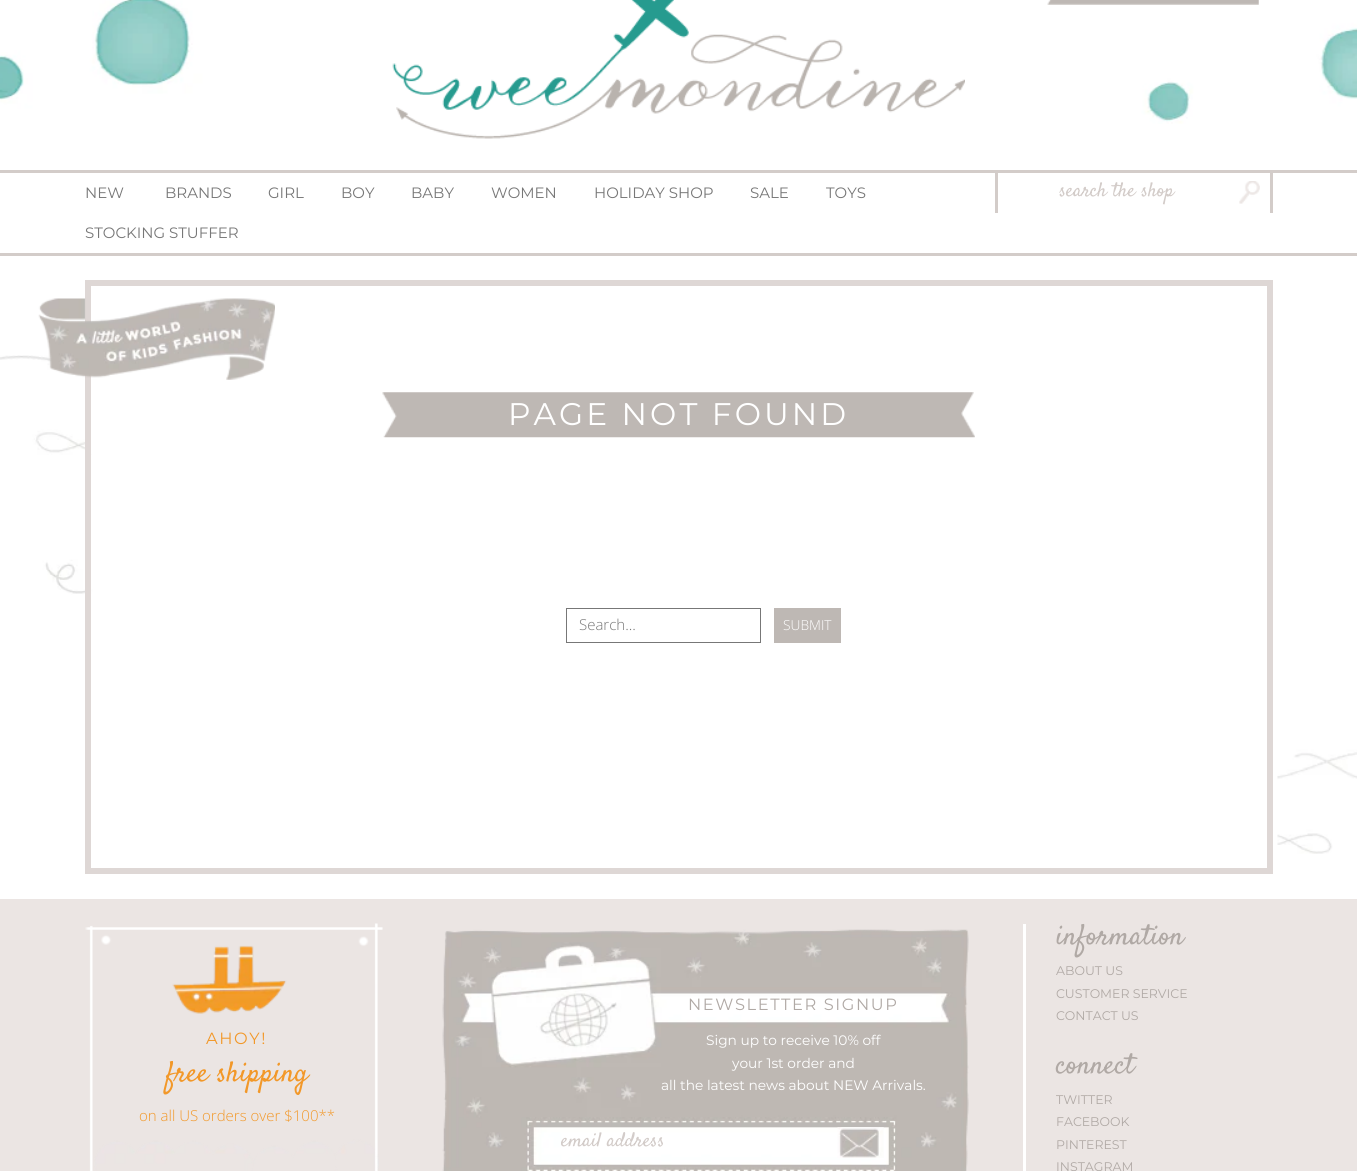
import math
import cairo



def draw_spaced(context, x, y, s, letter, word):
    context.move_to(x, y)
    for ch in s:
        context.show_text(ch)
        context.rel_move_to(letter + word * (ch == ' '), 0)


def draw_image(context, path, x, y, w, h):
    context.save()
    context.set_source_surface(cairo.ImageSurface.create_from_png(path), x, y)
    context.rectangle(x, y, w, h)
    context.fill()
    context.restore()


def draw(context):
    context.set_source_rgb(1, 1, 1)
    context.paint()
    draw_image(context, "images/1.png", 0, 0, 1357, 124)
    draw_image(context, "images/2.png", 392, 0, 573, 139)
    draw_image(context, "images/3.png", 1047, 0, 212, 5)
    context.set_source_rgb(211 / 255, 204 / 255, 201 / 255)
    context.rectangle(0, 170, 1357, 3)
    context.fill()
    context.rectangle(0, 253, 1357, 3)
    context.fill()
    context.rectangle(1270, 173, 3, 40)
    context.fill()
    context.rectangle(995, 173, 3, 40)
    context.fill()
    draw_image(context, "images/4.png", 1239, 181, 21, 23)
    draw_image(context, "images/5.png", 0, 355, 1357, 499)
    context.set_source_rgb(1, 1, 1)
    context.rectangle(91, 371, 2, 83)
    context.fill()
    context.rectangle(88, 283, 1182, 588)
    context.set_source_rgb(222 / 255, 215 / 255, 213 / 255)
    context.set_line_width(6)
    context.stroke()
    draw_image(context, "images/6.png", 38, 298, 237, 82)
    draw_image(context, "images/7.png", 382, 392, 593, 46)
    context.rectangle(566.5, 608.5, 194, 34)
    context.set_source_rgb(119 / 255, 119 / 255, 119 / 255)
    context.set_line_width(1)
    context.stroke()
    context.set_source_rgb(190 / 255, 184 / 255, 180 / 255)
    context.rectangle(774, 608, 67, 35)
    context.fill()
    context.set_source_rgb(235 / 255, 229 / 255, 227 / 255)
    context.rectangle(0, 899, 1357, 272)
    context.fill()
    draw_image(context, "images/8.png", 85, 923, 298, 248)
    draw_image(context, "images/9.png", 442, 929, 527, 242)
    draw_image(context, "images/10.png", 837, 1127, 47, 31)
    context.set_source_rgb(1, 1, 1)
    context.rectangle(1023, 924, 3, 247)
    context.fill()
    context.select_font_face("Montserrat Thin")
    context.set_font_size(15)
    context.set_source_rgb(119 / 255, 119 / 255, 119 / 255)
    context.move_to(85, 198)
    context.show_text("NEW")
    context.move_to(165, 198)
    context.show_text("BRANDS")
    context.move_to(268, 198)
    context.show_text("GIRL")
    context.move_to(341, 198)
    context.show_text("BOY")
    context.move_to(411, 198)
    context.show_text("BABY")
    context.move_to(491, 198)
    context.show_text("WOMEN")
    context.move_to(594, 198)
    context.show_text("HOLIDAY SHOP")
    context.move_to(750, 198)
    context.show_text("SALE")
    context.move_to(826, 198)
    context.show_text("TOYS")
    context.move_to(85, 238)
    context.show_text("STOCKING STUFFER")
    context.select_font_face("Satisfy")
    context.set_font_size(20)
    context.set_source_rgb(211 / 255, 204 / 255, 201 / 255)
    context.move_to(1059, 196)
    context.show_text("search the shop")
    context.select_font_face("Montserrat Thin")
    context.set_font_size(31.25)
    context.set_source_rgb(1, 1, 1)
    draw_spaced(context, 508, 425, "PAGE NOT FOUND", 3.1, 0)
    context.select_font_face("Open Sans Light")
    context.set_font_size(15)
    context.set_source_rgb(119 / 255, 119 / 255, 119 / 255)
    context.move_to(579, 630)
    context.show_text("Search...")
    context.set_font_size(13.75)
    context.set_source_rgb(1, 1, 1)
    context.move_to(783, 630)
    context.show_text("SUBMIT")
    context.select_font_face("Montserrat Thin")
    context.set_font_size(16.25)
    context.set_source_rgb(242 / 255, 152 / 255, 41 / 255)
    draw_spaced(context, 206, 1044, "AHOY!", 1.6, 0)
    context.select_font_face("Satisfy")
    context.set_font_size(28.75)
    context.move_to(166, 1081)
    context.show_text("free shipping")
    context.select_font_face("Open Sans Light")
    context.set_font_size(15)
    context.move_to(139, 1121)
    context.show_text("on all US orders over $100**")
    context.select_font_face("Montserrat Thin")
    context.set_font_size(16.25)
    context.set_source_rgb(176 / 255, 169 / 255, 165 / 255)
    draw_spaced(context, 688, 1010, "NEWSLETTER SIGNUP", 1.6, 0)
    context.set_font_size(13.75)
    context.set_source_rgb(1, 1, 1)
    context.move_to(706, 1045)
    context.show_text("Sign up to receive 10% off")
    context.move_to(732, 1068)
    context.show_text("your 1st order and")
    context.move_to(661, 1090)
    context.show_text("all the latest news about NEW Arrivals.")
    context.save()
    context.rectangle(561, 1128, 244, 25)
    context.clip()
    context.select_font_face("Satisfy")
    context.set_font_size(20)
    context.set_source_rgb(211 / 255, 204 / 255, 201 / 255)
    context.move_to(561, 1146)
    context.show_text("email address")
    context.restore()
    context.select_font_face("Satisfy")
    context.set_font_size(28.75)
    context.set_source_rgb(176 / 255, 169 / 255, 165 / 255)
    context.move_to(1056, 944)
    context.show_text("information")
    context.select_font_face("Montserrat Thin")
    context.set_font_size(12.5)
    context.move_to(1056, 975)
    context.show_text("ABOUT US")
    context.move_to(1056, 998)
    context.show_text("CUSTOMER SERVICE")
    context.move_to(1056, 1020)
    context.show_text("CONTACT US")
    context.select_font_face("Satisfy")
    context.set_font_size(28.75)
    context.move_to(1056, 1073)
    context.show_text("connect")
    context.select_font_face("Montserrat Thin")
    context.set_font_size(12.5)
    context.move_to(1056, 1104)
    context.show_text("TWITTER")
    context.move_to(1056, 1126)
    context.show_text("FACEBOOK")
    context.move_to(1056, 1149)
    context.show_text("PINTEREST")
    context.move_to(1056, 1171)
    context.show_text("INSTAGRAM")


surface = cairo.ImageSurface(cairo.Format.RGB24, 1357, 1171)
context = cairo.Context(surface)
options = cairo.FontOptions()
options.set_hint_metrics(cairo.HintMetrics.OFF)
options.set_hint_style(cairo.HintStyle.NONE)
context.set_font_options(options)
context.set_miter_limit(4)
draw(context)
surface.write_to_png("out.png")
